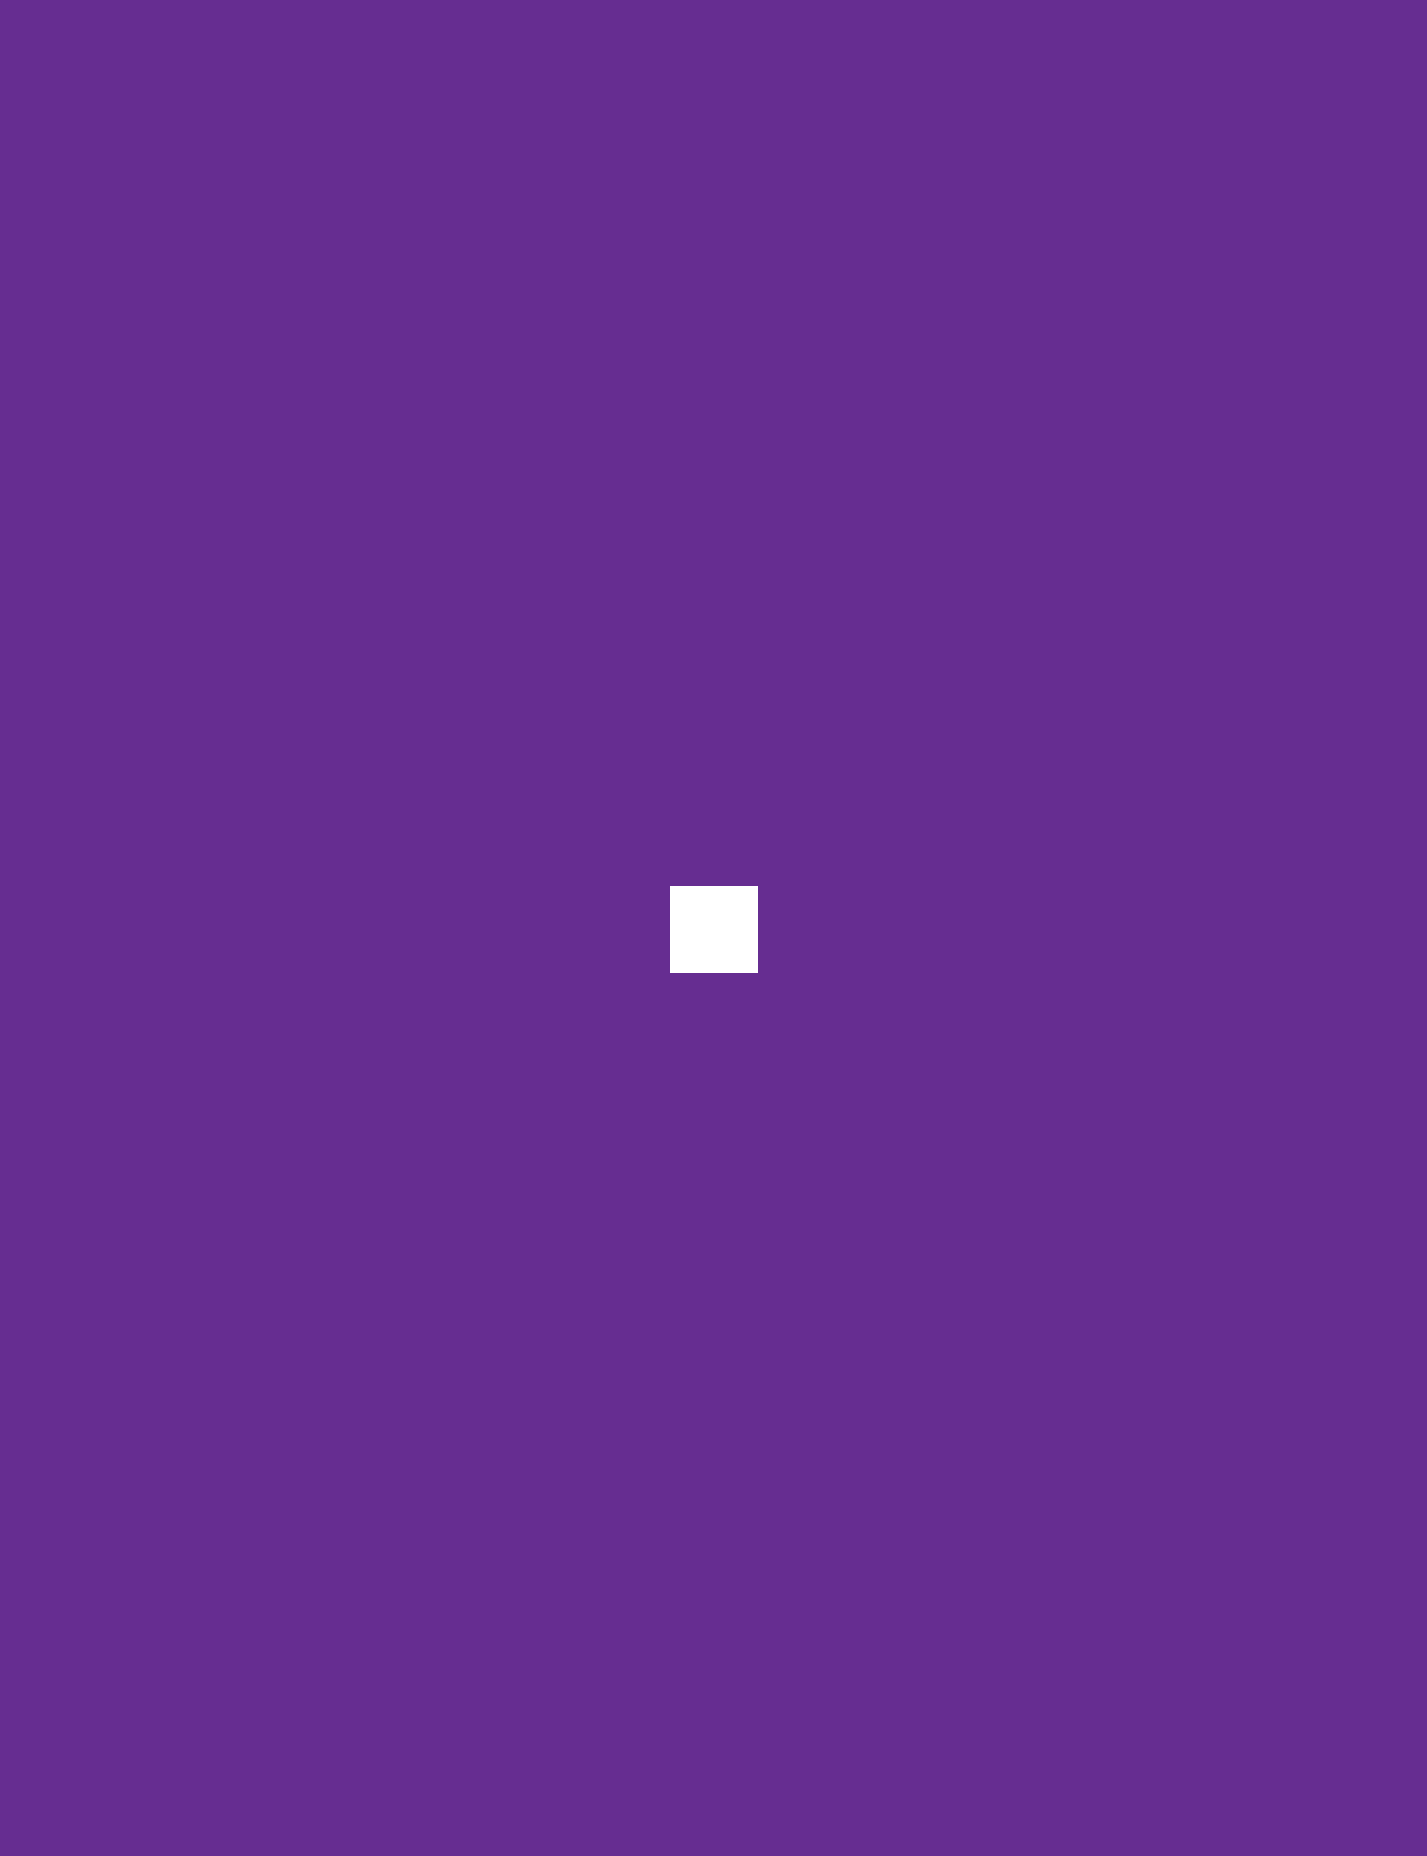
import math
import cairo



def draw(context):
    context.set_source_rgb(102 / 255, 45 / 255, 145 / 255)
    context.paint()
    context.set_source_rgb(1, 1, 1)
    context.rectangle(670, 886, 88, 87)
    context.fill()


surface = cairo.ImageSurface(cairo.Format.RGB24, 1427, 1856)
context = cairo.Context(surface)
options = cairo.FontOptions()
options.set_hint_metrics(cairo.HintMetrics.OFF)
options.set_hint_style(cairo.HintStyle.NONE)
context.set_font_options(options)
context.set_miter_limit(4)
draw(context)
surface.write_to_png("out.png")
